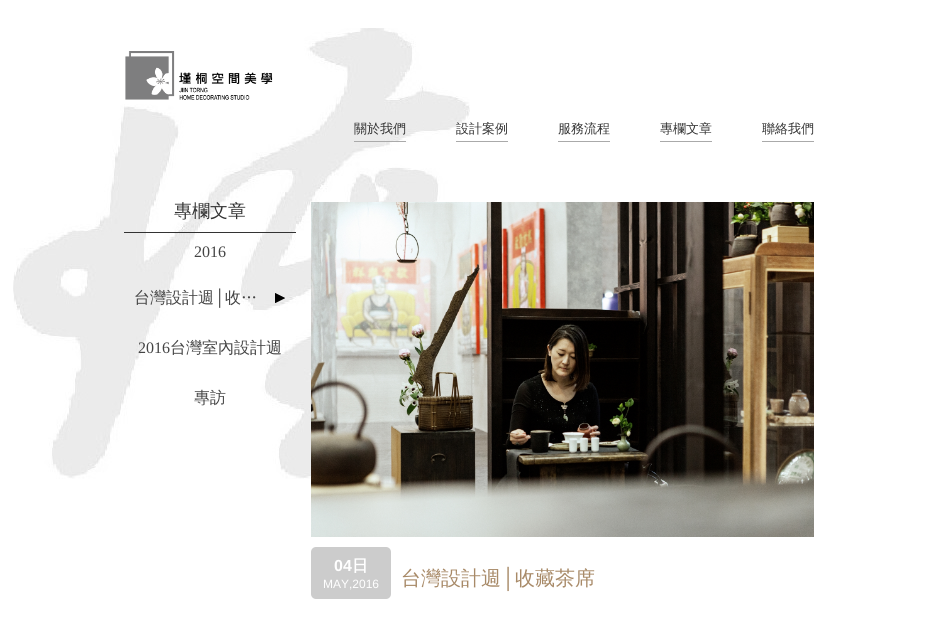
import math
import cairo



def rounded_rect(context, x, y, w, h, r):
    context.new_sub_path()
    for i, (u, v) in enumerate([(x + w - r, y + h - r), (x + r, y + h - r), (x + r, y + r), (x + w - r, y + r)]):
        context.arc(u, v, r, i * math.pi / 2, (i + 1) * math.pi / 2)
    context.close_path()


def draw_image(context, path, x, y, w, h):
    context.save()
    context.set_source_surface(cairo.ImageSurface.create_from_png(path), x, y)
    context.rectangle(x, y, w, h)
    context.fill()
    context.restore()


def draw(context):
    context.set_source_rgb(1, 1, 1)
    context.paint()
    draw_image(context, "images/1.png", 13, 28, 457, 451)
    draw_image(context, "images/2.png", 125, 51, 148, 49)
    context.set_source_rgb(170 / 255, 170 / 255, 170 / 255)
    context.rectangle(354, 141, 52, 1)
    context.fill()
    context.rectangle(456, 141, 52, 1)
    context.fill()
    context.rectangle(558, 141, 52, 1)
    context.fill()
    context.rectangle(660, 141, 52, 1)
    context.fill()
    context.rectangle(762, 141, 52, 1)
    context.fill()
    context.set_source_rgb(51 / 255, 51 / 255, 51 / 255)
    context.rectangle(124, 232, 172, 1)
    context.fill()
    draw_image(context, "images/3.png", 275, 293, 10, 10)
    draw_image(context, "images/4.png", 311, 202, 503, 335)
    context.set_source_rgb(204 / 255, 204 / 255, 204 / 255)
    rounded_rect(context, 311, 547, 80, 52, 5)
    context.fill()
    context.select_font_face("WenQuanYi Zen Hei Medium")
    context.set_font_size(13)
    context.set_source_rgb(51 / 255, 51 / 255, 51 / 255)
    context.move_to(354, 133)
    context.show_text("關於我們")
    context.save()
    context.rectangle(456, 120, 52, 21)
    context.clip()
    context.move_to(456, 133)
    context.show_text("設計案例")
    context.restore()
    context.move_to(558, 133)
    context.show_text("服務流程")
    context.move_to(660, 133)
    context.show_text("專欄文章")
    context.save()
    context.rectangle(762, 120, 52, 21)
    context.clip()
    context.move_to(762, 133)
    context.show_text("聯絡我們")
    context.restore()
    context.set_font_size(18)
    context.move_to(174, 217)
    context.show_text("專欄文章")
    context.select_font_face("Liberation Serif")
    context.set_font_size(16)
    context.set_source_rgb(68 / 255, 68 / 255, 68 / 255)
    context.move_to(194, 257)
    context.show_text("2016")
    context.select_font_face("WenQuanYi Zen Hei Medium")
    context.move_to(134, 303)
    context.show_text("台灣設計週")
    context.select_font_face("Liberation Serif")
    context.move_to(214, 303)
    context.show_text("│")
    context.select_font_face("WenQuanYi Zen Hei Medium")
    context.move_to(225, 303)
    context.show_text("收…")
    context.select_font_face("Liberation Serif")
    context.move_to(138, 353)
    context.show_text("2016")
    context.select_font_face("WenQuanYi Zen Hei Medium")
    context.move_to(170, 353)
    context.show_text("台灣室內設計週")
    context.move_to(194, 403)
    context.show_text("專訪")
    context.select_font_face("Liberation Sans", cairo.FontSlant.NORMAL, cairo.FontWeight.BOLD)
    context.set_source_rgb(1, 1, 1)
    context.move_to(334, 571)
    context.show_text("04")
    context.select_font_face("WenQuanYi Zen Hei", cairo.FontSlant.NORMAL, cairo.FontWeight.BOLD)
    context.move_to(352, 571)
    context.show_text("日")
    context.select_font_face("Liberation Sans")
    context.set_font_size(12)
    context.move_to(323, 588)
    context.show_text("MAY,2016")
    context.select_font_face("WenQuanYi Zen Hei Medium")
    context.set_font_size(20)
    context.set_source_rgb(168 / 255, 138 / 255, 104 / 255)
    context.move_to(401, 585)
    context.show_text("台灣設計週")
    context.select_font_face("Liberation Serif")
    context.move_to(501, 585)
    context.show_text("│")
    context.select_font_face("WenQuanYi Zen Hei Medium")
    context.move_to(515, 585)
    context.show_text("收藏茶席")


surface = cairo.ImageSurface(cairo.Format.RGB24, 937, 636)
context = cairo.Context(surface)
options = cairo.FontOptions()
options.set_hint_metrics(cairo.HintMetrics.OFF)
options.set_hint_style(cairo.HintStyle.NONE)
context.set_font_options(options)
context.set_miter_limit(4)
draw(context)
surface.write_to_png("out.png")
